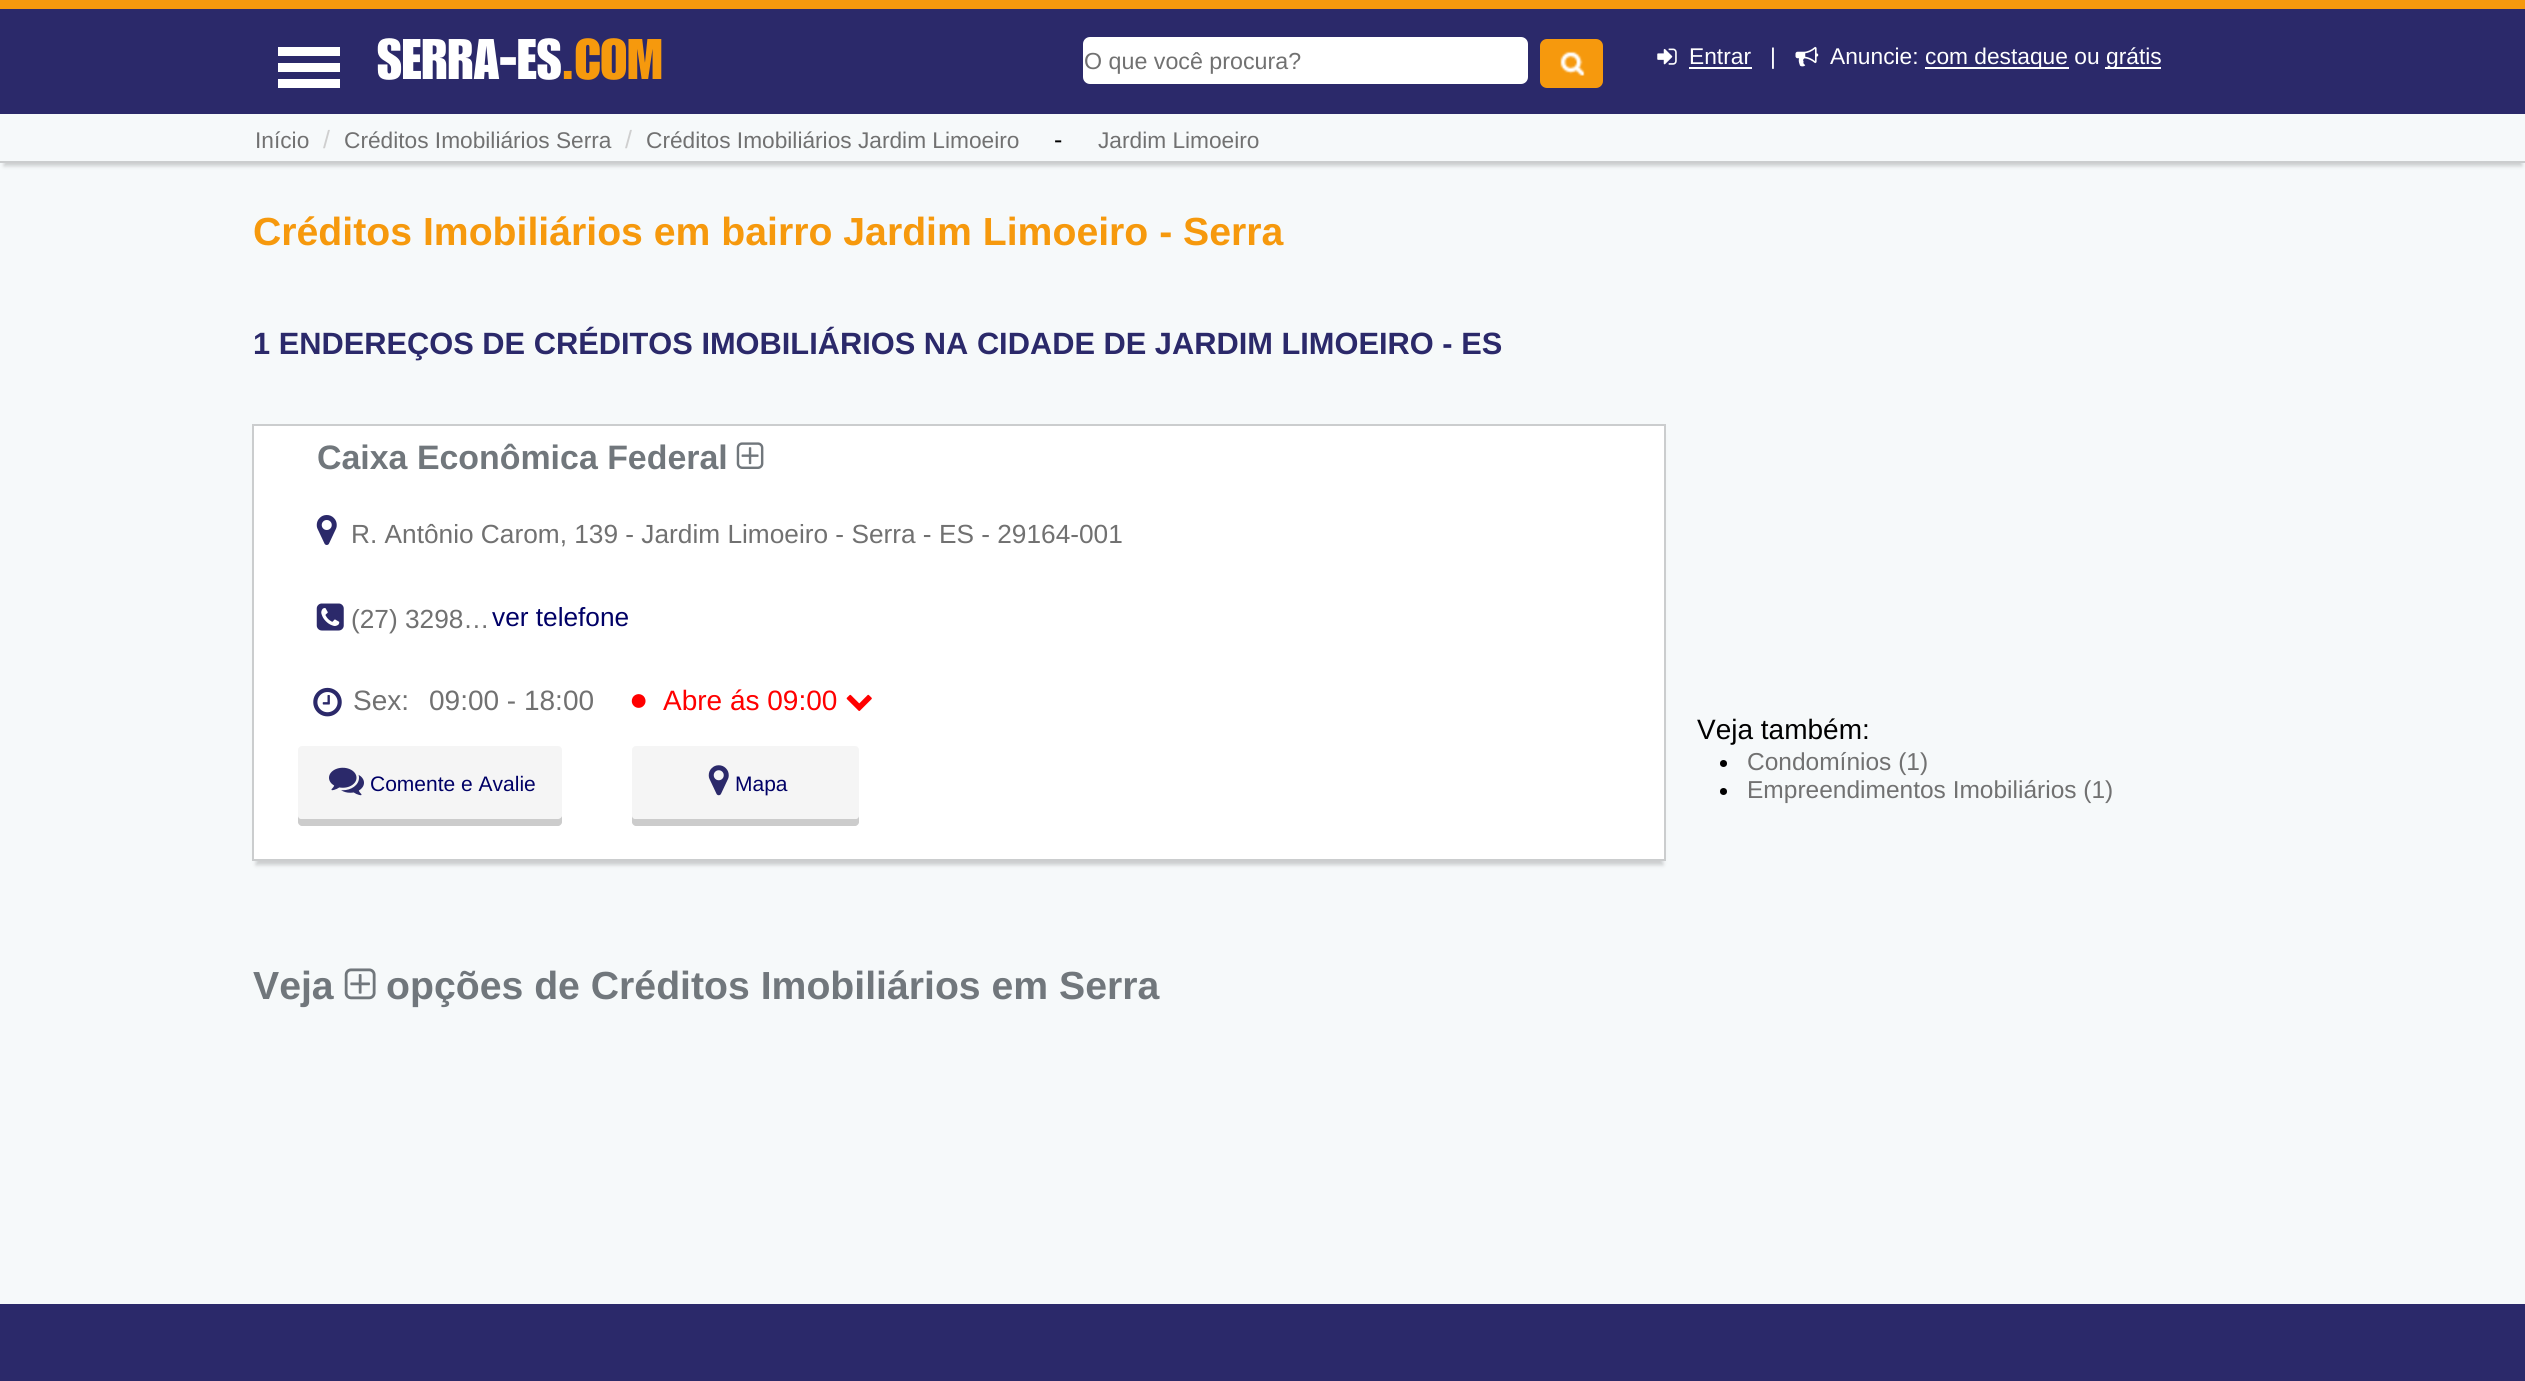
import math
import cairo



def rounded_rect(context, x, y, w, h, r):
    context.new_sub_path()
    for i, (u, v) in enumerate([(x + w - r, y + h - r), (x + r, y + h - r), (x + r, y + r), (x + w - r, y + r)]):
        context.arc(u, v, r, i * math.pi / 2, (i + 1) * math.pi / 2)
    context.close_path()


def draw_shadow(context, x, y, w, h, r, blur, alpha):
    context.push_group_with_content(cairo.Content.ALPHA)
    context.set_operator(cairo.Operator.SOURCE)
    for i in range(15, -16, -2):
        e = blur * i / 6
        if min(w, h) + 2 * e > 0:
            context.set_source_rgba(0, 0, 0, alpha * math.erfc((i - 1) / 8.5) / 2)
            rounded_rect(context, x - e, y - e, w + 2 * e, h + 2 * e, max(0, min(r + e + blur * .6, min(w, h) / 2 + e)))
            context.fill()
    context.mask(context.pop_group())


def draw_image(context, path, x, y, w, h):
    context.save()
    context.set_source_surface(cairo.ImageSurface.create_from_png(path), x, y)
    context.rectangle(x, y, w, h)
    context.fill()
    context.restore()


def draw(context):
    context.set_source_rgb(43 / 255, 41 / 255, 106 / 255)
    context.paint()
    context.set_source_rgb(246 / 255, 153 / 255, 13 / 255)
    context.rectangle(0, 0, 2525, 9)
    context.fill()
    context.set_source_rgb(1, 1, 1)
    context.rectangle(278, 47, 62, 9)
    context.fill()
    context.rectangle(278, 63, 62, 9)
    context.fill()
    context.rectangle(278, 79, 62, 9)
    context.fill()
    rounded_rect(context, 1083, 37, 445, 47, 7)
    context.fill()
    context.set_source_rgb(246 / 255, 153 / 255, 13 / 255)
    rounded_rect(context, 1540, 39, 63, 49, 7)
    context.fill()
    draw_image(context, "images/1.png", 1560, 51, 25, 25)
    draw_image(context, "images/2.png", 1657, 48, 20, 17)
    context.set_source_rgb(1, 1, 1)
    context.rectangle(1689, 67, 63, 2)
    context.fill()
    draw_image(context, "images/3.png", 1795, 46, 24, 21)
    context.rectangle(1925, 67, 144, 2)
    context.fill()
    context.rectangle(2105, 67, 56, 2)
    context.fill()
    context.set_source_rgb(246 / 255, 249 / 255, 250 / 255)
    context.rectangle(0, 114, 2525, 1190)
    context.fill()
    context.save()
    context.rectangle(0, 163, 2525, 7)
    context.clip()
    context.set_source_rgb(203 / 255, 205 / 255, 206 / 255)
    draw_shadow(context, 4, 128, 2518, 38, 0, 2, 1)
    context.restore()
    context.set_source_rgb(203 / 255, 205 / 255, 206 / 255)
    context.rectangle(0, 161, 2525, 2)
    context.fill()
    context.set_source_rgb(203 / 255, 205 / 255, 206 / 255)
    draw_shadow(context, 256, 434, 1407, 431, 0, 2, 1)
    context.set_source_rgb(1, 1, 1)
    context.rectangle(253, 425, 1412, 435)
    context.fill_preserve()
    context.set_source_rgb(203 / 255, 205 / 255, 206 / 255)
    context.stroke()
    draw_image(context, "images/4.png", 736, 442, 28, 27)
    draw_image(context, "images/5.png", 316, 515, 21, 30)
    draw_image(context, "images/6.png", 316, 603, 28, 28)
    draw_image(context, "images/7.png", 313, 687, 29, 30)
    draw_image(context, "images/8.png", 846, 694, 26, 17)
    context.set_source_rgb(245 / 255, 245 / 255, 245 / 255)
    rounded_rect(context, 298, 746, 264, 80, 4)
    context.fill()
    context.set_source_rgb(204 / 255, 204 / 255, 204 / 255)
    context.new_path()
    context.move_to(298, 816)
    context.line_to(298, 822)
    context.curve_to(298, 824, 300, 826, 302, 826)
    context.line_to(558, 826)
    context.curve_to(560, 826, 562, 824, 562, 822)
    context.line_to(562, 816)
    context.curve_to(562, 817, 560, 819, 558, 819)
    context.line_to(301, 819)
    context.curve_to(299, 819, 298, 817, 298, 816)
    context.close_path()
    context.fill()
    draw_image(context, "images/9.png", 329, 767, 35, 29)
    context.set_source_rgb(245 / 255, 245 / 255, 245 / 255)
    rounded_rect(context, 632, 746, 227, 80, 4)
    context.fill()
    context.set_source_rgb(204 / 255, 204 / 255, 204 / 255)
    context.new_path()
    context.move_to(632, 816)
    context.line_to(632, 822)
    context.curve_to(632, 824, 634, 826, 636, 826)
    context.line_to(855, 826)
    context.curve_to(857, 826, 859, 824, 859, 822)
    context.line_to(859, 816)
    context.curve_to(859, 817, 858, 819, 856, 819)
    context.line_to(635, 819)
    context.curve_to(633, 819, 632, 817, 632, 816)
    context.close_path()
    context.fill()
    draw_image(context, "images/10.png", 708, 765, 21, 31)
    draw_image(context, "images/11.png", 344, 968, 32, 32)
    context.set_source_rgb(0, 0, 0)
    context.arc(1723.5, 763.5, 3.5, 0, 2 * math.pi)
    context.fill()
    context.arc(1723.5, 791.5, 3.5, 0, 2 * math.pi)
    context.fill()
    context.select_font_face("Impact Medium")
    context.set_font_size(56)
    context.set_source_rgb(1, 1, 1)
    context.move_to(377, 79)
    context.show_text("SERRA-ES")
    context.set_source_rgb(246 / 255, 153 / 255, 13 / 255)
    context.move_to(561, 79)
    context.show_text(".COM")
    context.select_font_face("Liberation Sans")
    context.set_font_size(23.25)
    context.set_source_rgb(113 / 255, 113 / 255, 113 / 255)
    context.move_to(1084, 69)
    context.show_text("O que você procura?")
    context.set_font_size(22.75)
    context.set_source_rgb(1, 1, 1)
    context.move_to(1689, 64)
    context.show_text("Entrar")
    context.move_to(1770, 64)
    context.show_text("|")
    context.move_to(1830, 64)
    context.show_text("Anuncie:")
    context.move_to(1925, 64)
    context.show_text("com destaque ou")
    context.move_to(2106, 64)
    context.show_text("grátis")
    context.set_font_size(22.7)
    context.set_source_rgb(113 / 255, 113 / 255, 113 / 255)
    context.move_to(255, 148)
    context.show_text("Início")
    context.set_font_size(25)
    context.set_source_rgb(207 / 255, 207 / 255, 207 / 255)
    context.move_to(323, 148)
    context.show_text("/")
    context.set_font_size(22.7)
    context.set_source_rgb(113 / 255, 113 / 255, 113 / 255)
    context.move_to(344, 148)
    context.show_text("Créditos Imobiliários Serra")
    context.set_font_size(25)
    context.set_source_rgb(207 / 255, 207 / 255, 207 / 255)
    context.move_to(625, 148)
    context.show_text("/")
    context.set_font_size(22.7)
    context.set_source_rgb(113 / 255, 113 / 255, 113 / 255)
    context.move_to(646, 148)
    context.show_text("Créditos Imobiliários Jardim Limoeiro")
    context.set_font_size(25)
    context.set_source_rgb(0, 0, 0)
    context.move_to(1054, 148)
    context.show_text("-")
    context.set_font_size(22.7)
    context.set_source_rgb(113 / 255, 113 / 255, 113 / 255)
    context.move_to(1098, 148)
    context.show_text("Jardim Limoeiro")
    context.select_font_face("Liberation Sans", cairo.FontSlant.NORMAL, cairo.FontWeight.BOLD)
    context.set_font_size(39.2)
    context.set_source_rgb(246 / 255, 153 / 255, 13 / 255)
    context.move_to(253, 245)
    context.show_text("Créditos Imobiliários em bairro Jardim Limoeiro - Serra")
    context.set_font_size(30.8)
    context.set_source_rgb(43 / 255, 41 / 255, 106 / 255)
    context.move_to(253, 354)
    context.show_text("1 ENDEREÇOS DE CRÉDITOS IMOBILIÁRIOS NA CIDADE DE JARDIM LIMOEIRO - ES")
    context.set_font_size(33.9)
    context.set_source_rgb(113 / 255, 119 / 255, 124 / 255)
    context.move_to(317, 469)
    context.show_text("Caixa Econômica Federal")
    context.select_font_face("Liberation Sans")
    context.set_font_size(26.25)
    context.set_source_rgb(113 / 255, 113 / 255, 113 / 255)
    context.move_to(351, 543)
    context.show_text("R. Antônio Carom, 139 - Jardim Limoeiro - Serra - ES - 29164-001")
    context.move_to(351, 628)
    context.show_text("(27) 3298…")
    context.set_source_rgb(0, 0, 102 / 255)
    context.move_to(492, 626)
    context.show_text("ver telefone")
    context.set_font_size(28)
    context.set_source_rgb(113 / 255, 113 / 255, 113 / 255)
    context.move_to(353, 710)
    context.show_text("Sex:")
    context.move_to(429, 710)
    context.show_text("09:00 - 18:00")
    context.set_font_size(32)
    context.set_source_rgb(1, 0, 0)
    context.move_to(629, 710)
    context.show_text("●")
    context.set_font_size(28)
    context.move_to(663, 710)
    context.show_text("Abre ás 09:00")
    context.set_font_size(21)
    context.set_source_rgb(0, 0, 102 / 255)
    context.move_to(370, 791)
    context.show_text("Comente e Avalie")
    context.move_to(735, 791)
    context.show_text("Mapa")
    context.select_font_face("Liberation Sans", cairo.FontSlant.NORMAL, cairo.FontWeight.BOLD)
    context.set_font_size(39.2)
    context.set_source_rgb(113 / 255, 119 / 255, 124 / 255)
    context.move_to(253, 999)
    context.show_text("Veja")
    context.move_to(386, 999)
    context.show_text("opções de Créditos Imobiliários em Serra")
    context.select_font_face("Liberation Sans")
    context.set_font_size(28)
    context.set_source_rgb(0, 0, 0)
    context.move_to(1697, 739)
    context.show_text("Veja também:")
    context.set_font_size(24.5)
    context.set_source_rgb(113 / 255, 113 / 255, 113 / 255)
    context.move_to(1747, 770)
    context.show_text("Condomínios (1)")
    context.move_to(1747, 798)
    context.show_text("Empreendimentos Imobiliários (1)")


surface = cairo.ImageSurface(cairo.Format.RGB24, 2525, 1381)
context = cairo.Context(surface)
options = cairo.FontOptions()
options.set_hint_metrics(cairo.HintMetrics.OFF)
options.set_hint_style(cairo.HintStyle.NONE)
context.set_font_options(options)
context.set_miter_limit(4)
draw(context)
surface.write_to_png("out.png")
